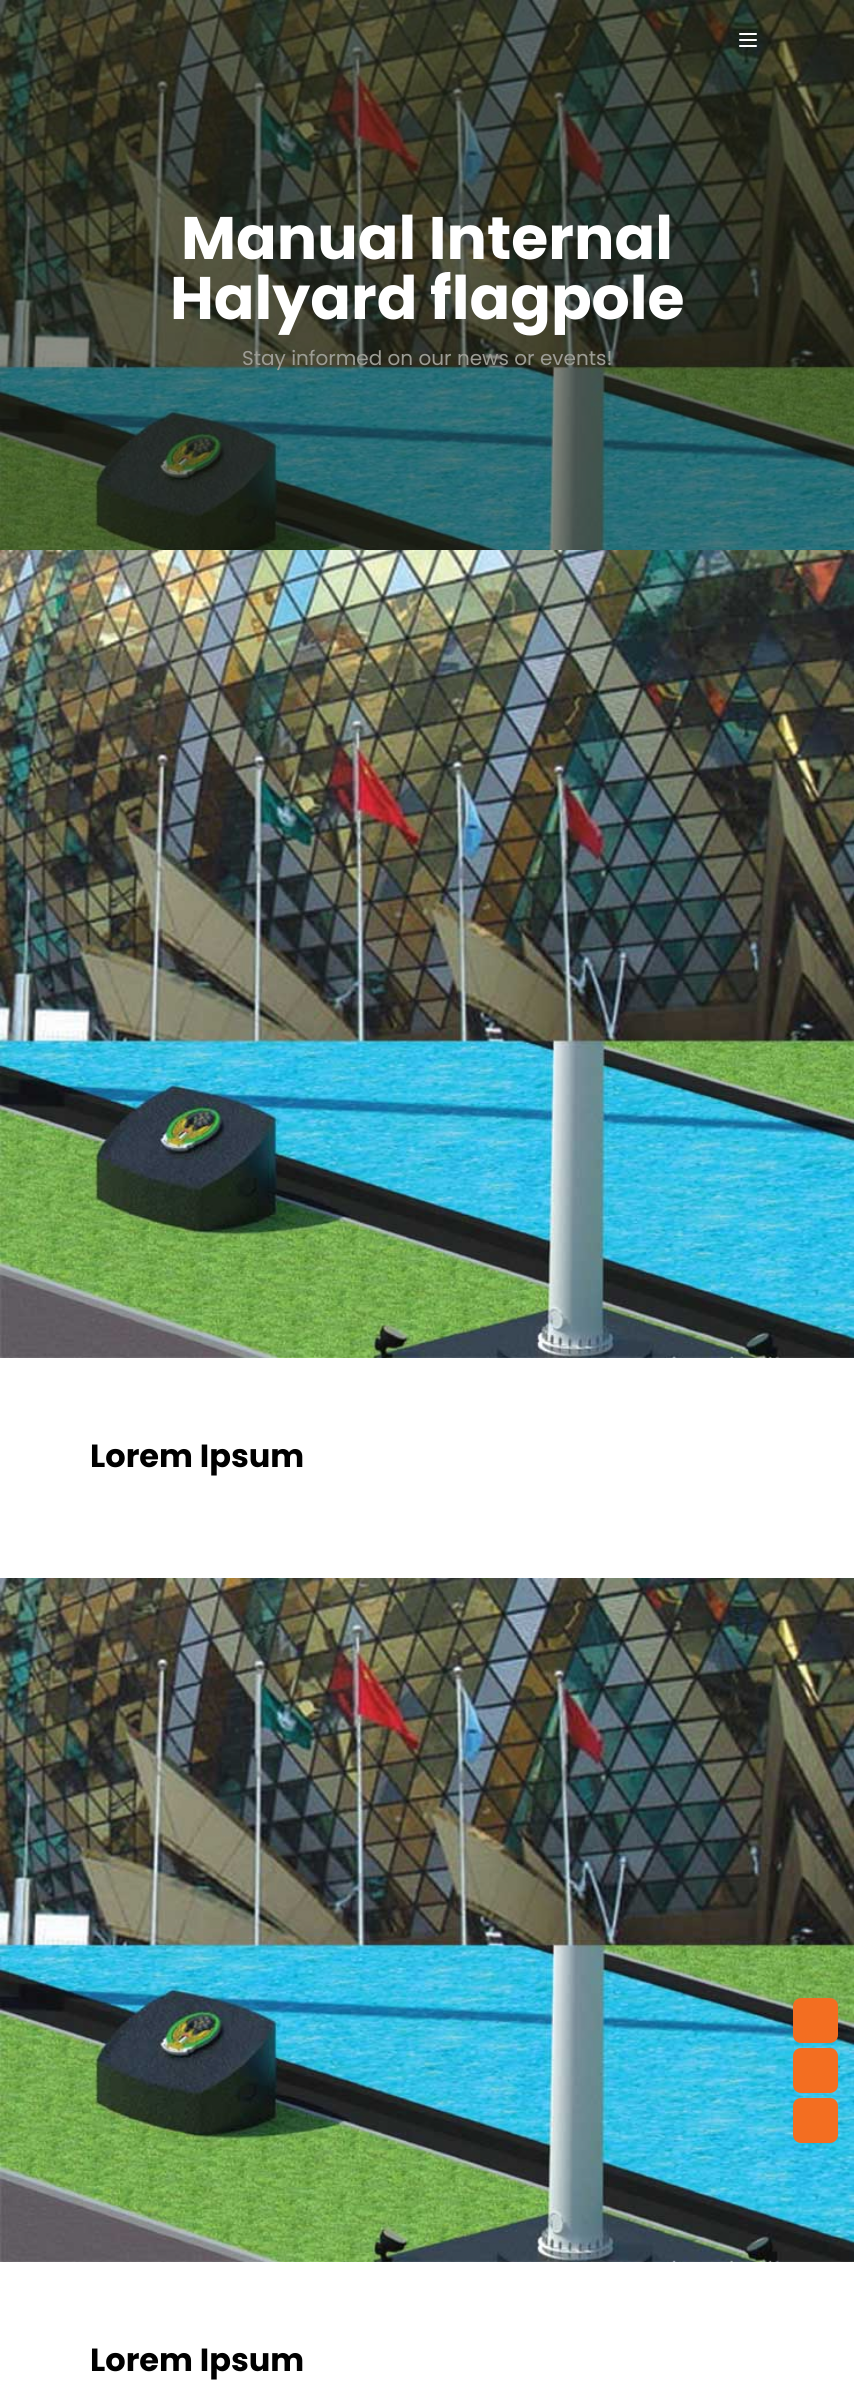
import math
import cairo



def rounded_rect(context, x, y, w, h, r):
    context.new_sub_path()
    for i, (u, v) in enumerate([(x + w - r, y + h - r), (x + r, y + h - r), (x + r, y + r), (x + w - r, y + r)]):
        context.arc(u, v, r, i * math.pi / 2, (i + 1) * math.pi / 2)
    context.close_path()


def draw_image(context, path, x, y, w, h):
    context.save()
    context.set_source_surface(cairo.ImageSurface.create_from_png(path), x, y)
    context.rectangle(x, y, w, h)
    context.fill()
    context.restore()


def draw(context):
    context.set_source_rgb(1, 1, 1)
    context.paint()
    draw_image(context, "images/1.png", 0, 0, 854, 550)
    context.set_source_rgb(1, 1, 1)
    rounded_rect(context, 739, 33, 18, 2, 1)
    context.fill()
    rounded_rect(context, 739, 39, 18, 2, 1)
    context.fill()
    rounded_rect(context, 739, 45, 18, 2, 1)
    context.fill()
    draw_image(context, "images/2.png", 0, 550, 854, 808)
    draw_image(context, "images/3.png", 0, 1578, 854, 684)
    context.set_source_rgb(243 / 255, 110 / 255, 33 / 255)
    rounded_rect(context, 793, 1998, 45, 45, 8)
    context.fill()
    rounded_rect(context, 793, 2048, 45, 45, 8)
    context.fill()
    rounded_rect(context, 793, 2098, 45, 45, 8)
    context.fill()
    context.select_font_face("Poppins", cairo.FontSlant.NORMAL, cairo.FontWeight.BOLD)
    context.set_font_size(60)
    context.set_source_rgb(1, 1, 1)
    context.move_to(181, 259)
    context.show_text("Manual Internal")
    context.move_to(170, 319)
    context.show_text("Halyard flagpole")
    context.select_font_face("Poppins")
    context.set_font_size(20)
    context.set_source_rgb(157 / 255, 157 / 255, 150 / 255)
    context.move_to(242, 365)
    context.show_text("Stay informed on our news or events!")
    context.select_font_face("Poppins", cairo.FontSlant.NORMAL, cairo.FontWeight.BOLD)
    context.set_font_size(32)
    context.set_source_rgb(0, 0, 0)
    context.move_to(90, 1467)
    context.show_text("Lorem Ipsum")
    context.move_to(90, 2371)
    context.show_text("Lorem Ipsum")


surface = cairo.ImageSurface(cairo.Format.RGB24, 854, 2387)
context = cairo.Context(surface)
options = cairo.FontOptions()
options.set_hint_metrics(cairo.HintMetrics.OFF)
options.set_hint_style(cairo.HintStyle.NONE)
context.set_font_options(options)
context.set_miter_limit(4)
draw(context)
surface.write_to_png("out.png")
